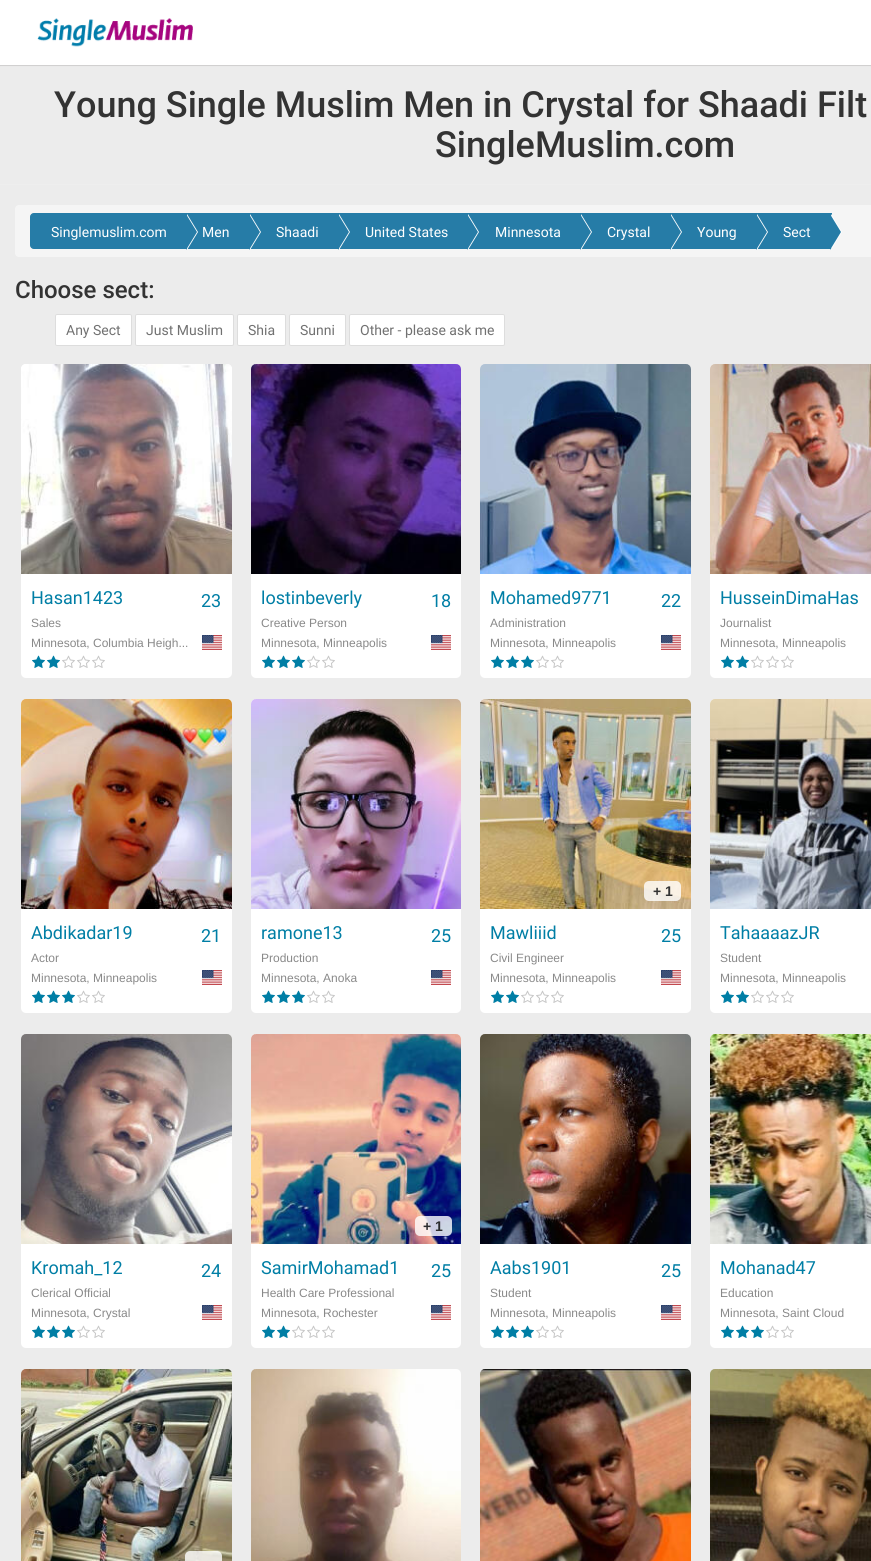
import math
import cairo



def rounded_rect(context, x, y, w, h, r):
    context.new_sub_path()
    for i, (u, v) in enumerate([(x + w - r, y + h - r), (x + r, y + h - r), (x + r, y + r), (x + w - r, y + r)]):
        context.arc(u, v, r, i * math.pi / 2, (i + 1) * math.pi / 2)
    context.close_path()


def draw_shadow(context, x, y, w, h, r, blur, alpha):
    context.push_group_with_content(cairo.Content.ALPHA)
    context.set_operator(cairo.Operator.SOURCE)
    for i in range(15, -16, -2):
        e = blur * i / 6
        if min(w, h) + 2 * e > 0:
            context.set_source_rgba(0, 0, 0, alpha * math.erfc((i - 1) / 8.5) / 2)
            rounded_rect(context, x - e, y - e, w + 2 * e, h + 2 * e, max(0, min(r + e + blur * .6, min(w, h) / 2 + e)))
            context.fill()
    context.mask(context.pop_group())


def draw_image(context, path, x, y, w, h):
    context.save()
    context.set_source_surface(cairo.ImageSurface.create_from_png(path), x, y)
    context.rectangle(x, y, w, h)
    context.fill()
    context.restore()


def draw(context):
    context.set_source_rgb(214 / 255, 213 / 255, 213 / 255)
    context.paint()
    context.set_source_rgb(236 / 255, 236 / 255, 236 / 255)
    context.rectangle(0, 66, 871, 118)
    context.fill()
    context.set_source_rgb(36 / 255, 37 / 255, 38 / 255)
    draw_shadow(context, 0, 0, 871, 65, 0, 1.5, 0.08)
    context.set_source_rgb(1, 1, 1)
    context.rectangle(0, 0, 871, 65)
    context.fill()
    draw_image(context, "images/1.png", 37, 18, 156, 29)
    context.set_source_rgb(238 / 255, 238 / 255, 238 / 255)
    context.rectangle(0, 184, 871, 1)
    context.fill()
    context.set_source_rgb(236 / 255, 236 / 255, 236 / 255)
    context.rectangle(0, 185, 871, 1376)
    context.fill()
    context.set_source_rgb(245 / 255, 245 / 255, 245 / 255)
    rounded_rect(context, 15, 205, 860, 52, 4)
    context.fill()
    context.set_source_rgb(38 / 255, 124 / 255, 167 / 255)
    context.new_path()
    context.move_to(34, 213.5)
    context.line_to(187.5, 213.5)
    context.line_to(187.5, 248.5)
    context.line_to(34, 248.5)
    context.curve_to(32, 248.5, 30.5, 247, 30.5, 245)
    context.line_to(30.5, 217)
    context.curve_to(30.5, 215, 32, 213.5, 34, 213.5)
    context.close_path()
    context.fill_preserve()
    context.set_line_width(1)
    context.stroke()
    context.rectangle(188, 213, 644, 36)
    context.fill()
    context.set_source_rgb(1, 1, 1)
    context.new_path()
    context.move_to(187, 250)
    context.line_to(187, 214)
    context.line_to(198, 232)
    context.close_path()
    context.fill()
    context.set_source_rgb(38 / 255, 124 / 255, 167 / 255)
    context.new_path()
    context.move_to(186, 250)
    context.line_to(186, 214)
    context.line_to(197, 232)
    context.close_path()
    context.fill()
    context.set_source_rgb(1, 1, 1)
    context.new_path()
    context.move_to(250, 250)
    context.line_to(250, 214)
    context.line_to(261, 232)
    context.close_path()
    context.fill()
    context.set_source_rgb(38 / 255, 124 / 255, 167 / 255)
    context.new_path()
    context.move_to(249, 250)
    context.line_to(249, 214)
    context.line_to(260, 232)
    context.close_path()
    context.fill()
    context.set_source_rgb(1, 1, 1)
    context.new_path()
    context.move_to(339, 250)
    context.line_to(339, 214)
    context.line_to(350, 232)
    context.close_path()
    context.fill()
    context.set_source_rgb(38 / 255, 124 / 255, 167 / 255)
    context.new_path()
    context.move_to(338, 250)
    context.line_to(338, 214)
    context.line_to(349, 232)
    context.close_path()
    context.fill()
    context.set_source_rgb(1, 1, 1)
    context.new_path()
    context.move_to(468, 250)
    context.line_to(468, 214)
    context.line_to(479, 232)
    context.close_path()
    context.fill()
    context.set_source_rgb(38 / 255, 124 / 255, 167 / 255)
    context.new_path()
    context.move_to(467, 250)
    context.line_to(467, 214)
    context.line_to(478, 232)
    context.close_path()
    context.fill()
    context.set_source_rgb(1, 1, 1)
    context.new_path()
    context.move_to(581, 250)
    context.line_to(581, 214)
    context.line_to(592, 232)
    context.close_path()
    context.fill()
    context.set_source_rgb(38 / 255, 124 / 255, 167 / 255)
    context.new_path()
    context.move_to(580, 250)
    context.line_to(580, 214)
    context.line_to(591, 232)
    context.close_path()
    context.fill()
    context.set_source_rgb(1, 1, 1)
    context.new_path()
    context.move_to(671, 250)
    context.line_to(671, 214)
    context.line_to(682, 232)
    context.close_path()
    context.fill()
    context.set_source_rgb(38 / 255, 124 / 255, 167 / 255)
    context.new_path()
    context.move_to(670, 250)
    context.line_to(670, 214)
    context.line_to(681, 232)
    context.close_path()
    context.fill()
    context.set_source_rgb(1, 1, 1)
    context.new_path()
    context.move_to(757, 250)
    context.line_to(757, 214)
    context.line_to(768, 232)
    context.close_path()
    context.fill()
    context.set_source_rgb(38 / 255, 124 / 255, 167 / 255)
    context.new_path()
    context.move_to(756, 250)
    context.line_to(756, 214)
    context.line_to(767, 232)
    context.close_path()
    context.fill()
    context.set_source_rgb(1, 1, 1)
    context.new_path()
    context.move_to(831, 250)
    context.line_to(831, 214)
    context.line_to(842, 232)
    context.close_path()
    context.fill()
    context.set_source_rgb(38 / 255, 124 / 255, 167 / 255)
    context.new_path()
    context.move_to(830, 250)
    context.line_to(830, 214)
    context.line_to(841, 232)
    context.close_path()
    context.fill()
    context.set_source_rgb(1, 1, 1)
    rounded_rect(context, 55.5, 314.5, 76, 31, 1.5)
    context.fill_preserve()
    context.set_source_rgb(221 / 255, 221 / 255, 221 / 255)
    context.stroke()
    context.set_source_rgb(1, 1, 1)
    rounded_rect(context, 135.5, 314.5, 98, 31, 1.5)
    context.fill_preserve()
    context.set_source_rgb(221 / 255, 221 / 255, 221 / 255)
    context.stroke()
    context.set_source_rgb(1, 1, 1)
    rounded_rect(context, 237.5, 314.5, 48, 31, 1.5)
    context.fill_preserve()
    context.set_source_rgb(221 / 255, 221 / 255, 221 / 255)
    context.stroke()
    context.set_source_rgb(1, 1, 1)
    rounded_rect(context, 289.5, 314.5, 56, 31, 1.5)
    context.fill_preserve()
    context.set_source_rgb(221 / 255, 221 / 255, 221 / 255)
    context.stroke()
    context.set_source_rgb(1, 1, 1)
    rounded_rect(context, 349.5, 314.5, 155, 31, 1.5)
    context.fill_preserve()
    context.set_source_rgb(221 / 255, 221 / 255, 221 / 255)
    context.stroke()
    context.set_source_rgb(1, 1, 1)
    rounded_rect(context, 21, 364, 211, 314, 5)
    context.fill()
    draw_image(context, "images/2.png", 21, 364, 211, 210)
    draw_image(context, "images/3.png", 202, 635, 20, 15)
    draw_image(context, "images/4.png", 32, 655, 13, 13)
    draw_image(context, "images/4.png", 47, 655, 13, 13)
    draw_image(context, "images/5.png", 62, 655, 13, 13)
    draw_image(context, "images/5.png", 77, 655, 13, 13)
    draw_image(context, "images/5.png", 92, 655, 13, 13)
    rounded_rect(context, 251, 364, 210, 314, 5)
    context.fill()
    draw_image(context, "images/6.png", 251, 364, 210, 210)
    draw_image(context, "images/3.png", 431, 635, 20, 15)
    draw_image(context, "images/4.png", 262, 655, 13, 13)
    draw_image(context, "images/4.png", 277, 655, 13, 13)
    draw_image(context, "images/4.png", 292, 655, 13, 13)
    draw_image(context, "images/5.png", 307, 655, 13, 13)
    draw_image(context, "images/5.png", 322, 655, 13, 13)
    rounded_rect(context, 480, 364, 211, 314, 5)
    context.fill()
    draw_image(context, "images/7.png", 480, 364, 211, 210)
    draw_image(context, "images/3.png", 661, 635, 20, 15)
    draw_image(context, "images/4.png", 491, 655, 13, 13)
    draw_image(context, "images/4.png", 506, 655, 13, 13)
    draw_image(context, "images/4.png", 521, 655, 13, 13)
    draw_image(context, "images/5.png", 536, 655, 13, 13)
    draw_image(context, "images/5.png", 551, 655, 13, 13)
    rounded_rect(context, 710, 364, 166, 314, 5)
    context.fill()
    draw_image(context, "images/8.png", 710, 364, 161, 210)
    draw_image(context, "images/4.png", 721, 655, 13, 13)
    draw_image(context, "images/4.png", 736, 655, 13, 13)
    draw_image(context, "images/5.png", 751, 655, 13, 13)
    draw_image(context, "images/5.png", 766, 655, 13, 13)
    draw_image(context, "images/5.png", 781, 655, 13, 13)
    rounded_rect(context, 21, 699, 211, 314, 5)
    context.fill()
    draw_image(context, "images/9.png", 21, 699, 211, 210)
    draw_image(context, "images/3.png", 202, 970, 20, 15)
    draw_image(context, "images/4.png", 32, 990, 13, 13)
    draw_image(context, "images/4.png", 47, 990, 13, 13)
    draw_image(context, "images/4.png", 62, 990, 13, 13)
    draw_image(context, "images/5.png", 77, 990, 13, 13)
    draw_image(context, "images/5.png", 92, 990, 13, 13)
    rounded_rect(context, 251, 699, 210, 314, 5)
    context.fill()
    draw_image(context, "images/10.png", 251, 699, 210, 210)
    draw_image(context, "images/3.png", 431, 970, 20, 15)
    draw_image(context, "images/4.png", 262, 990, 13, 13)
    draw_image(context, "images/4.png", 277, 990, 13, 13)
    draw_image(context, "images/4.png", 292, 990, 13, 13)
    draw_image(context, "images/5.png", 307, 990, 13, 13)
    draw_image(context, "images/5.png", 322, 990, 13, 13)
    rounded_rect(context, 480, 699, 211, 314, 5)
    context.fill()
    draw_image(context, "images/11.png", 480, 699, 211, 210)
    context.set_source_rgba(1, 1, 1, 0.8)
    rounded_rect(context, 644, 881, 37, 20, 5)
    context.fill()
    draw_image(context, "images/3.png", 661, 970, 20, 15)
    draw_image(context, "images/4.png", 491, 990, 13, 13)
    draw_image(context, "images/4.png", 506, 990, 13, 13)
    draw_image(context, "images/5.png", 521, 990, 13, 13)
    draw_image(context, "images/5.png", 536, 990, 13, 13)
    draw_image(context, "images/5.png", 551, 990, 13, 13)
    context.set_source_rgb(1, 1, 1)
    rounded_rect(context, 710, 699, 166, 314, 5)
    context.fill()
    draw_image(context, "images/12.png", 710, 699, 161, 210)
    draw_image(context, "images/4.png", 721, 990, 13, 13)
    draw_image(context, "images/4.png", 736, 990, 13, 13)
    draw_image(context, "images/5.png", 751, 990, 13, 13)
    draw_image(context, "images/5.png", 766, 990, 13, 13)
    draw_image(context, "images/5.png", 781, 990, 13, 13)
    rounded_rect(context, 21, 1034, 211, 314, 5)
    context.fill()
    draw_image(context, "images/13.png", 21, 1034, 211, 210)
    draw_image(context, "images/3.png", 202, 1305, 20, 15)
    draw_image(context, "images/4.png", 32, 1325, 13, 13)
    draw_image(context, "images/4.png", 47, 1325, 13, 13)
    draw_image(context, "images/4.png", 62, 1325, 13, 13)
    draw_image(context, "images/5.png", 77, 1325, 13, 13)
    draw_image(context, "images/5.png", 92, 1325, 13, 13)
    rounded_rect(context, 251, 1034, 210, 314, 5)
    context.fill()
    draw_image(context, "images/14.png", 251, 1034, 210, 210)
    context.set_source_rgba(1, 1, 1, 0.8)
    rounded_rect(context, 415, 1216, 37, 20, 5)
    context.fill()
    draw_image(context, "images/3.png", 431, 1305, 20, 15)
    draw_image(context, "images/4.png", 262, 1325, 13, 13)
    draw_image(context, "images/4.png", 277, 1325, 13, 13)
    draw_image(context, "images/5.png", 292, 1325, 13, 13)
    draw_image(context, "images/5.png", 307, 1325, 13, 13)
    draw_image(context, "images/5.png", 322, 1325, 13, 13)
    context.set_source_rgb(1, 1, 1)
    rounded_rect(context, 480, 1034, 211, 314, 5)
    context.fill()
    draw_image(context, "images/15.png", 480, 1034, 211, 210)
    draw_image(context, "images/3.png", 661, 1305, 20, 15)
    draw_image(context, "images/4.png", 491, 1325, 13, 13)
    draw_image(context, "images/4.png", 506, 1325, 13, 13)
    draw_image(context, "images/4.png", 521, 1325, 13, 13)
    draw_image(context, "images/5.png", 536, 1325, 13, 13)
    draw_image(context, "images/5.png", 551, 1325, 13, 13)
    rounded_rect(context, 710, 1034, 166, 314, 5)
    context.fill()
    draw_image(context, "images/16.png", 710, 1034, 161, 210)
    draw_image(context, "images/4.png", 721, 1325, 13, 13)
    draw_image(context, "images/4.png", 736, 1325, 13, 13)
    draw_image(context, "images/4.png", 751, 1325, 13, 13)
    draw_image(context, "images/5.png", 766, 1325, 13, 13)
    draw_image(context, "images/5.png", 781, 1325, 13, 13)
    draw_image(context, "images/17.png", 21, 1369, 211, 192)
    context.set_source_rgba(1, 1, 1, 0.8)
    rounded_rect(context, 185, 1551, 37, 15, 5)
    context.fill()
    draw_image(context, "images/18.png", 251, 1369, 210, 192)
    draw_image(context, "images/19.png", 480, 1369, 211, 192)
    draw_image(context, "images/20.png", 710, 1369, 161, 192)
    context.select_font_face("Roboto Medium")
    context.set_font_size(36)
    context.set_source_rgb(51 / 255, 51 / 255, 51 / 255)
    context.move_to(54, 117)
    context.show_text("Young Single Muslim Men in Crystal for Shaadi Filt")
    context.move_to(435, 157)
    context.show_text("SingleMuslim.com")
    context.select_font_face("Roboto")
    context.set_font_size(14)
    context.set_source_rgb(1, 1, 1)
    context.move_to(51, 237)
    context.show_text("Singlemuslim.com")
    context.move_to(202, 237)
    context.show_text("Men")
    context.move_to(276, 237)
    context.show_text("Shaadi")
    context.move_to(365, 237)
    context.show_text("United States")
    context.move_to(495, 237)
    context.show_text("Minnesota")
    context.move_to(607, 237)
    context.show_text("Crystal")
    context.move_to(697, 237)
    context.show_text("Young")
    context.move_to(783, 237)
    context.show_text("Sect")
    context.select_font_face("Roboto Medium")
    context.set_font_size(24)
    context.set_source_rgb(51 / 255, 51 / 255, 51 / 255)
    context.move_to(15, 298)
    context.show_text("Choose sect:")
    context.select_font_face("Roboto")
    context.set_font_size(14)
    context.set_source_rgb(113 / 255, 113 / 255, 113 / 255)
    context.move_to(66, 335)
    context.show_text("Any Sect")
    context.move_to(146, 335)
    context.show_text("Just Muslim")
    context.move_to(248, 335)
    context.show_text("Shia")
    context.move_to(300, 335)
    context.show_text("Sunni")
    context.move_to(360, 335)
    context.show_text("Other - please ask me")
    context.set_font_size(18)
    context.set_source_rgb(0, 126 / 255, 165 / 255)
    context.move_to(31, 604)
    context.show_text("Hasan1423")
    context.move_to(201, 607)
    context.show_text("23")
    context.select_font_face("Liberation Sans")
    context.set_font_size(12)
    context.set_source_rgb(137 / 255, 137 / 255, 137 / 255)
    context.move_to(31, 627)
    context.show_text("Sales")
    context.move_to(31, 647)
    context.show_text("Minnesota, Columbia Heigh...")
    context.select_font_face("Roboto")
    context.set_font_size(18)
    context.set_source_rgb(0, 126 / 255, 165 / 255)
    context.move_to(261, 604)
    context.show_text("lostinbeverly")
    context.move_to(431, 607)
    context.show_text("18")
    context.select_font_face("Liberation Sans")
    context.set_font_size(12)
    context.set_source_rgb(137 / 255, 137 / 255, 137 / 255)
    context.move_to(261, 627)
    context.show_text("Creative Person")
    context.move_to(261, 647)
    context.show_text("Minnesota, Minneapolis")
    context.select_font_face("Roboto")
    context.set_font_size(18)
    context.set_source_rgb(0, 126 / 255, 165 / 255)
    context.move_to(490, 604)
    context.show_text("Mohamed9771")
    context.move_to(661, 607)
    context.show_text("22")
    context.select_font_face("Liberation Sans")
    context.set_font_size(12)
    context.set_source_rgb(137 / 255, 137 / 255, 137 / 255)
    context.move_to(490, 627)
    context.show_text("Administration")
    context.move_to(490, 647)
    context.show_text("Minnesota, Minneapolis")
    context.select_font_face("Roboto")
    context.set_font_size(18)
    context.set_source_rgb(0, 126 / 255, 165 / 255)
    context.move_to(720, 604)
    context.show_text("HusseinDimaHas")
    context.select_font_face("Liberation Sans")
    context.set_font_size(12)
    context.set_source_rgb(137 / 255, 137 / 255, 137 / 255)
    context.move_to(720, 627)
    context.show_text("Journalist")
    context.move_to(720, 647)
    context.show_text("Minnesota, Minneapolis")
    context.select_font_face("Roboto")
    context.set_font_size(18)
    context.set_source_rgb(0, 126 / 255, 165 / 255)
    context.move_to(31, 939)
    context.show_text("Abdikadar19")
    context.move_to(201, 942)
    context.show_text("21")
    context.select_font_face("Liberation Sans")
    context.set_font_size(12)
    context.set_source_rgb(137 / 255, 137 / 255, 137 / 255)
    context.move_to(31, 962)
    context.show_text("Actor")
    context.move_to(31, 982)
    context.show_text("Minnesota, Minneapolis")
    context.select_font_face("Roboto")
    context.set_font_size(18)
    context.set_source_rgb(0, 126 / 255, 165 / 255)
    context.move_to(261, 939)
    context.show_text("ramone13")
    context.move_to(431, 942)
    context.show_text("25")
    context.select_font_face("Liberation Sans")
    context.set_font_size(12)
    context.set_source_rgb(137 / 255, 137 / 255, 137 / 255)
    context.move_to(261, 962)
    context.show_text("Production")
    context.move_to(261, 982)
    context.show_text("Minnesota, Anoka")
    context.select_font_face("Liberation Sans", cairo.FontSlant.NORMAL, cairo.FontWeight.BOLD)
    context.set_font_size(14)
    context.set_source_rgb(51 / 255, 51 / 255, 51 / 255)
    context.move_to(653, 896)
    context.show_text("+ 1")
    context.select_font_face("Roboto")
    context.set_font_size(18)
    context.set_source_rgb(0, 126 / 255, 165 / 255)
    context.move_to(490, 939)
    context.show_text("Mawliiid")
    context.move_to(661, 942)
    context.show_text("25")
    context.select_font_face("Liberation Sans")
    context.set_font_size(12)
    context.set_source_rgb(137 / 255, 137 / 255, 137 / 255)
    context.move_to(490, 962)
    context.show_text("Civil Engineer")
    context.move_to(490, 982)
    context.show_text("Minnesota, Minneapolis")
    context.select_font_face("Roboto")
    context.set_font_size(18)
    context.set_source_rgb(0, 126 / 255, 165 / 255)
    context.move_to(720, 939)
    context.show_text("TahaaaazJR")
    context.select_font_face("Liberation Sans")
    context.set_font_size(12)
    context.set_source_rgb(137 / 255, 137 / 255, 137 / 255)
    context.move_to(720, 962)
    context.show_text("Student")
    context.move_to(720, 982)
    context.show_text("Minnesota, Minneapolis")
    context.select_font_face("Roboto")
    context.set_font_size(18)
    context.set_source_rgb(0, 126 / 255, 165 / 255)
    context.move_to(31, 1274)
    context.show_text("Kromah_12")
    context.move_to(201, 1277)
    context.show_text("24")
    context.select_font_face("Liberation Sans")
    context.set_font_size(12)
    context.set_source_rgb(137 / 255, 137 / 255, 137 / 255)
    context.move_to(31, 1297)
    context.show_text("Clerical Official")
    context.move_to(31, 1317)
    context.show_text("Minnesota, Crystal")
    context.select_font_face("Liberation Sans", cairo.FontSlant.NORMAL, cairo.FontWeight.BOLD)
    context.set_font_size(14)
    context.set_source_rgb(44 / 255, 44 / 255, 46 / 255)
    context.move_to(423, 1231)
    context.show_text("+ 1")
    context.select_font_face("Roboto")
    context.set_font_size(18)
    context.set_source_rgb(0, 126 / 255, 165 / 255)
    context.move_to(261, 1274)
    context.show_text("SamirMohamad1")
    context.move_to(431, 1277)
    context.show_text("25")
    context.select_font_face("Liberation Sans")
    context.set_font_size(12)
    context.set_source_rgb(137 / 255, 137 / 255, 137 / 255)
    context.move_to(261, 1297)
    context.show_text("Health Care Professional")
    context.move_to(261, 1317)
    context.show_text("Minnesota, Rochester")
    context.select_font_face("Roboto")
    context.set_font_size(18)
    context.set_source_rgb(0, 126 / 255, 165 / 255)
    context.move_to(490, 1274)
    context.show_text("Aabs1901")
    context.move_to(661, 1277)
    context.show_text("25")
    context.select_font_face("Liberation Sans")
    context.set_font_size(12)
    context.set_source_rgb(137 / 255, 137 / 255, 137 / 255)
    context.move_to(490, 1297)
    context.show_text("Student")
    context.move_to(490, 1317)
    context.show_text("Minnesota, Minneapolis")
    context.select_font_face("Roboto")
    context.set_font_size(18)
    context.set_source_rgb(0, 126 / 255, 165 / 255)
    context.move_to(720, 1274)
    context.show_text("Mohanad47")
    context.select_font_face("Liberation Sans")
    context.set_font_size(12)
    context.set_source_rgb(137 / 255, 137 / 255, 137 / 255)
    context.move_to(720, 1297)
    context.show_text("Education")
    context.move_to(720, 1317)
    context.show_text("Minnesota, Saint Cloud")


surface = cairo.ImageSurface(cairo.Format.RGB24, 871, 1561)
context = cairo.Context(surface)
options = cairo.FontOptions()
options.set_hint_metrics(cairo.HintMetrics.OFF)
options.set_hint_style(cairo.HintStyle.NONE)
context.set_font_options(options)
context.set_miter_limit(4)
draw(context)
surface.write_to_png("out.png")
